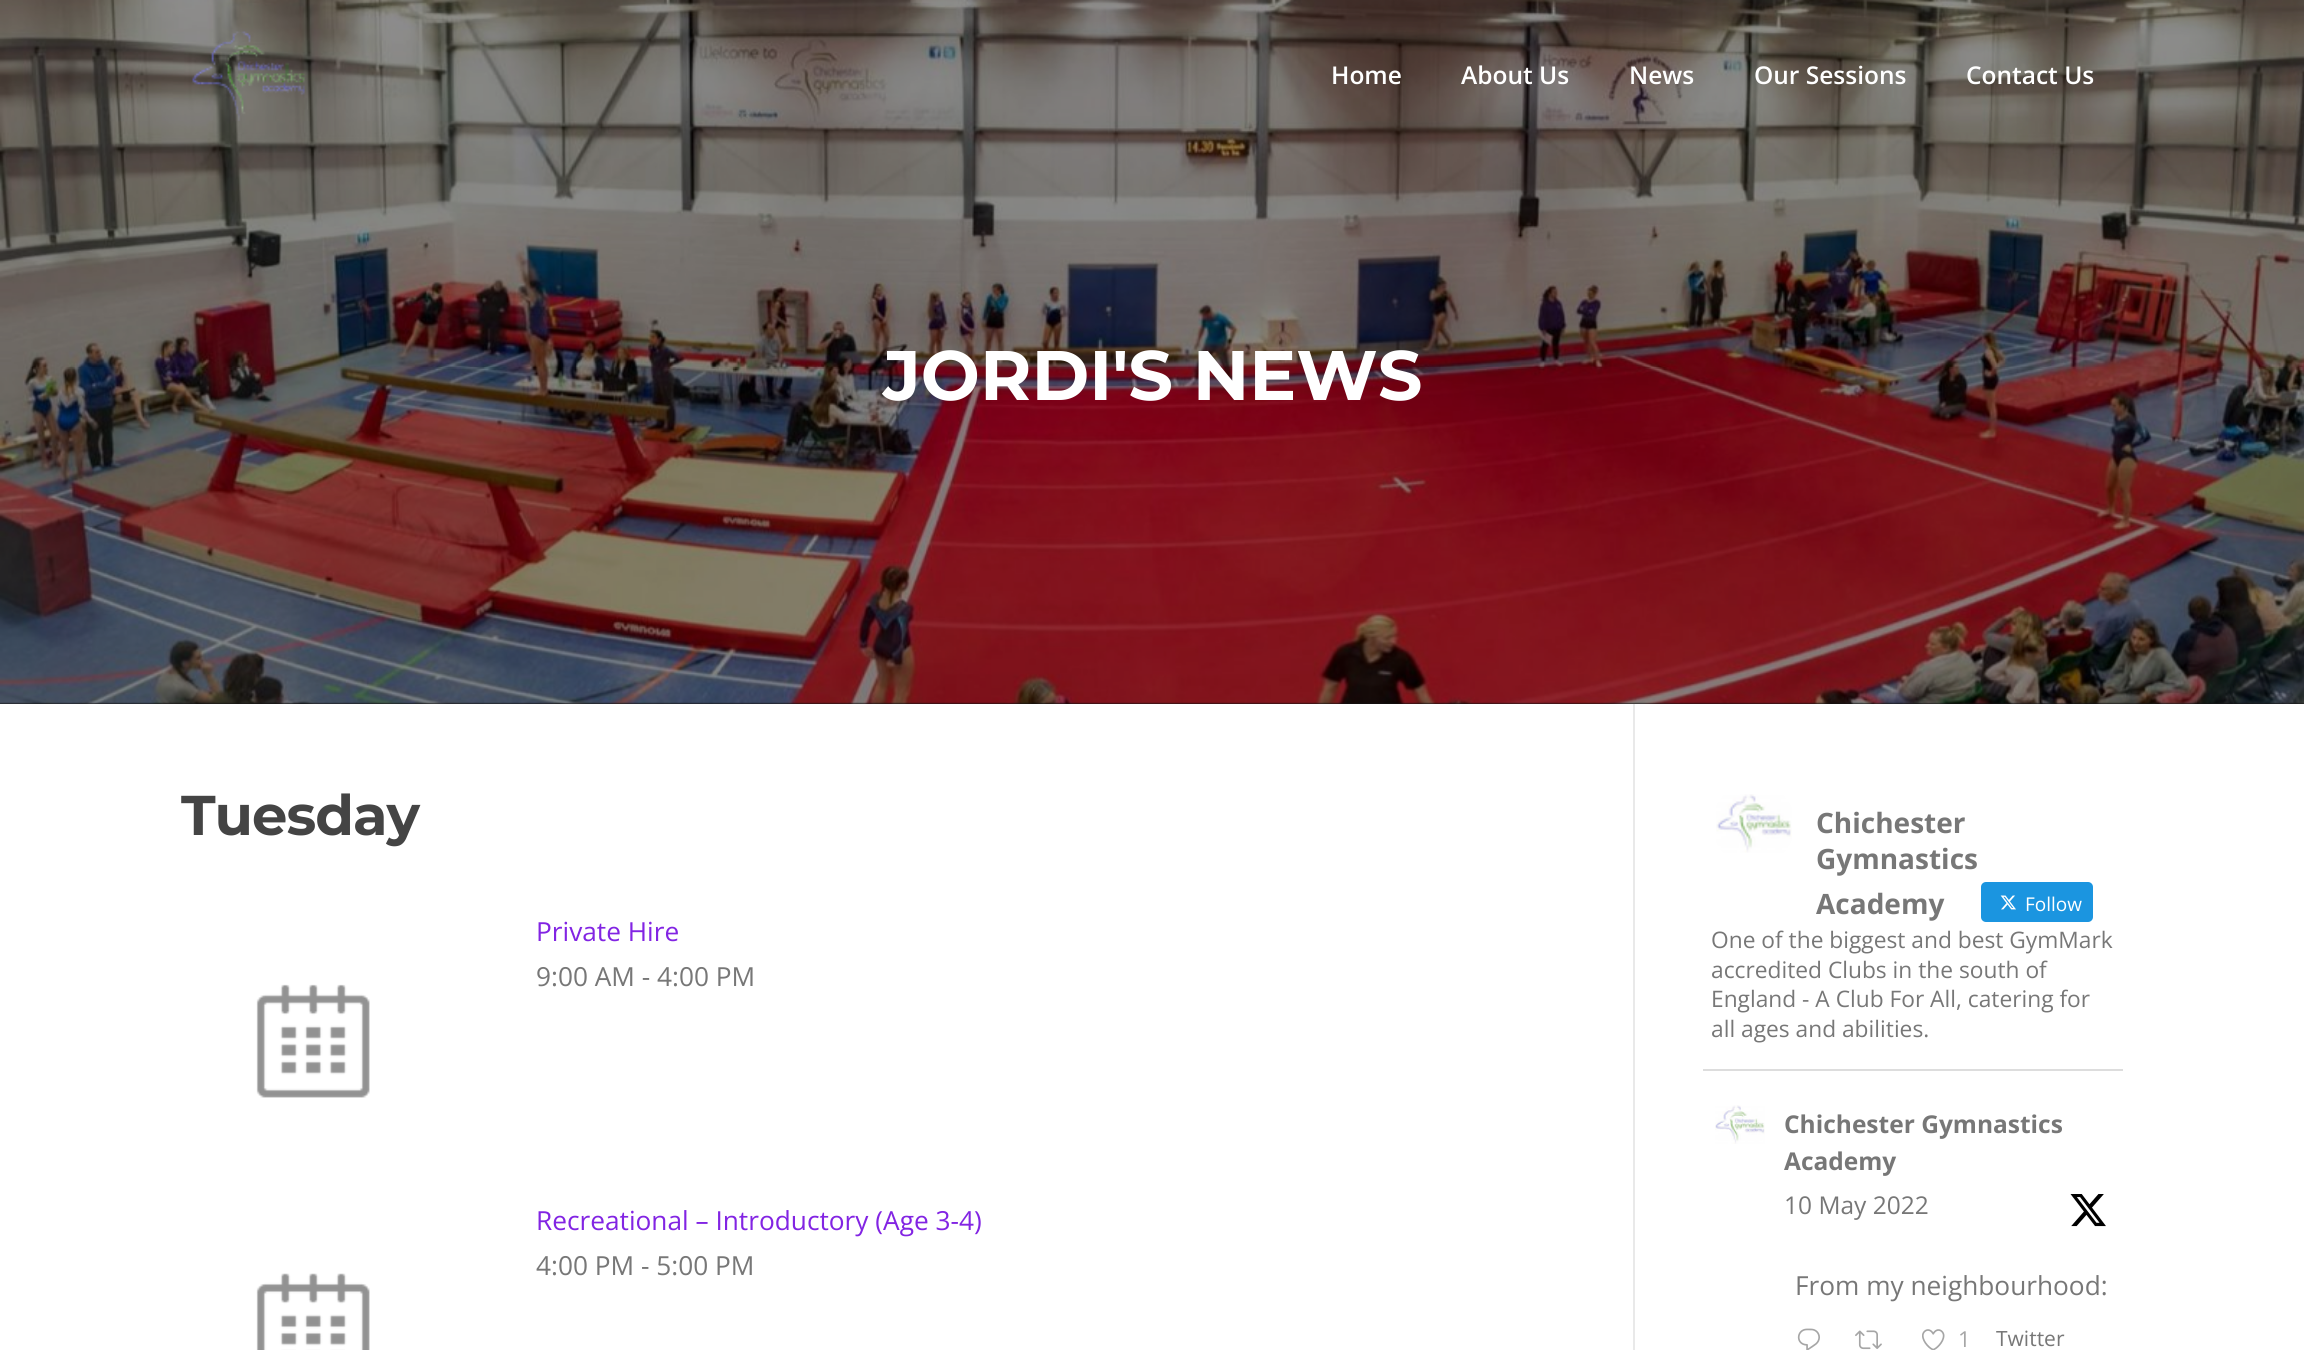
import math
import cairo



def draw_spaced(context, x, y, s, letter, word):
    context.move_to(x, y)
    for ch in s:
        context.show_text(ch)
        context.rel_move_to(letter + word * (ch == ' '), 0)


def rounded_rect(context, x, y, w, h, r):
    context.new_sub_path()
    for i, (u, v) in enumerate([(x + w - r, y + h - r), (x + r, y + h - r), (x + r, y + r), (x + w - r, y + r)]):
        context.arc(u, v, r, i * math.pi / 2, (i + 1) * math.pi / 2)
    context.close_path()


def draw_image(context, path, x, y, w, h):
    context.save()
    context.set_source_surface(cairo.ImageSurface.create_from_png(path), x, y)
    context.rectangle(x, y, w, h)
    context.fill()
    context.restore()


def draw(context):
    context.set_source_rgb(1, 1, 1)
    context.paint()
    context.set_source_rgb(19 / 255, 19 / 255, 19 / 255)
    context.rectangle(0, 702, 2304, 2)
    context.fill()
    draw_image(context, "images/2.png", 0, 0, 2304, 704)
    draw_image(context, "images/1.png", 192, 31, 113, 90)
    context.set_source_rgb(233 / 255, 233 / 255, 233 / 255)
    context.rectangle(1633, 704, 2, 646)
    context.fill()
    draw_image(context, "images/3.png", 256, 984, 114, 114)
    draw_image(context, "images/4.png", 256, 1273, 114, 77)
    context.set_source_rgb(221 / 255, 221 / 255, 221 / 255)
    context.rectangle(1703, 1069, 420, 2)
    context.fill()
    draw_image(context, "images/5.png", 1716, 794, 76, 59)
    context.set_source_rgb(27 / 255, 149 / 255, 224 / 255)
    rounded_rect(context, 1981, 882, 112, 40, 5)
    context.fill()
    draw_image(context, "images/6.png", 2000, 895, 16, 15)
    draw_image(context, "images/7.png", 1715, 1105, 50, 39)
    draw_image(context, "images/8.png", 2070, 1194, 36, 33)
    draw_image(context, "images/9.png", 1797, 1328, 23, 22)
    draw_image(context, "images/10.png", 1855, 1330, 27, 20)
    draw_image(context, "images/11.png", 1922, 1329, 23, 21)
    context.select_font_face("Open Sans SemiBold")
    context.set_font_size(24.5)
    context.set_source_rgb(1, 1, 1)
    context.move_to(1331, 84)
    context.show_text("Home")
    context.move_to(1461, 84)
    context.show_text("About Us")
    context.move_to(1629, 84)
    context.show_text("News")
    context.move_to(1754, 84)
    context.show_text("Our Sessions")
    context.move_to(1966, 84)
    context.show_text("Contact Us")
    context.select_font_face("Montserrat", cairo.FontSlant.NORMAL, cairo.FontWeight.BOLD)
    context.set_font_size(70)
    context.move_to(883, 400)
    context.show_text("JORDI'S NEWS")
    context.set_font_size(56)
    context.set_source_rgb(68 / 255, 68 / 255, 68 / 255)
    draw_spaced(context, 181, 835, "Tuesday", -1, 0)
    context.select_font_face("Open Sans")
    context.set_font_size(26.25)
    context.set_source_rgb(130 / 255, 36 / 255, 227 / 255)
    context.move_to(536, 941)
    context.show_text("Private Hire")
    context.set_source_rgb(119 / 255, 119 / 255, 119 / 255)
    context.move_to(536, 986)
    context.show_text("9:00 AM - 4:00 PM")
    context.set_source_rgb(130 / 255, 36 / 255, 227 / 255)
    context.move_to(536, 1230)
    context.show_text("Recreational – Introductory (Age 3-4)")
    context.set_source_rgb(119 / 255, 119 / 255, 119 / 255)
    context.move_to(536, 1275)
    context.show_text("4:00 PM - 5:00 PM")
    context.select_font_face("Open Sans", cairo.FontSlant.NORMAL, cairo.FontWeight.BOLD)
    context.set_font_size(28)
    context.move_to(1816, 833)
    context.show_text("Chichester")
    context.move_to(1816, 869)
    context.show_text("Gymnastics")
    context.move_to(1816, 914)
    context.show_text("Academy")
    context.select_font_face("Open Sans")
    context.set_font_size(19)
    context.set_source_rgb(1, 1, 1)
    context.move_to(2025, 911)
    context.show_text("Follow")
    context.set_font_size(22.75)
    context.set_source_rgb(119 / 255, 119 / 255, 119 / 255)
    context.move_to(1711, 948)
    context.show_text("One of the biggest and best GymMark")
    context.move_to(1711, 978)
    context.show_text("accredited Clubs in the south of")
    context.move_to(1711, 1007)
    context.show_text("England - A Club For All, catering for")
    context.move_to(1711, 1037)
    context.show_text("all ages and abilities.")
    context.select_font_face("Open Sans", cairo.FontSlant.NORMAL, cairo.FontWeight.BOLD)
    context.set_font_size(24.5)
    context.move_to(1784, 1133)
    context.show_text("Chichester Gymnastics")
    context.move_to(1784, 1170)
    context.show_text("Academy")
    context.select_font_face("Open Sans")
    context.move_to(1784, 1214)
    context.show_text("10 May 2022")
    context.set_font_size(26.25)
    context.move_to(1795, 1295)
    context.show_text("From my neighbourhood:")
    context.set_font_size(22)
    context.set_source_rgb(166 / 255, 166 / 255, 166 / 255)
    context.move_to(1958, 1347)
    context.show_text("1")
    context.set_font_size(21)
    context.set_source_rgb(119 / 255, 119 / 255, 119 / 255)
    context.move_to(1996, 1346)
    context.show_text("Twitter")


surface = cairo.ImageSurface(cairo.Format.RGB24, 2304, 1350)
context = cairo.Context(surface)
options = cairo.FontOptions()
options.set_hint_metrics(cairo.HintMetrics.OFF)
options.set_hint_style(cairo.HintStyle.NONE)
context.set_font_options(options)
context.set_miter_limit(4)
draw(context)
surface.write_to_png("out.png")
